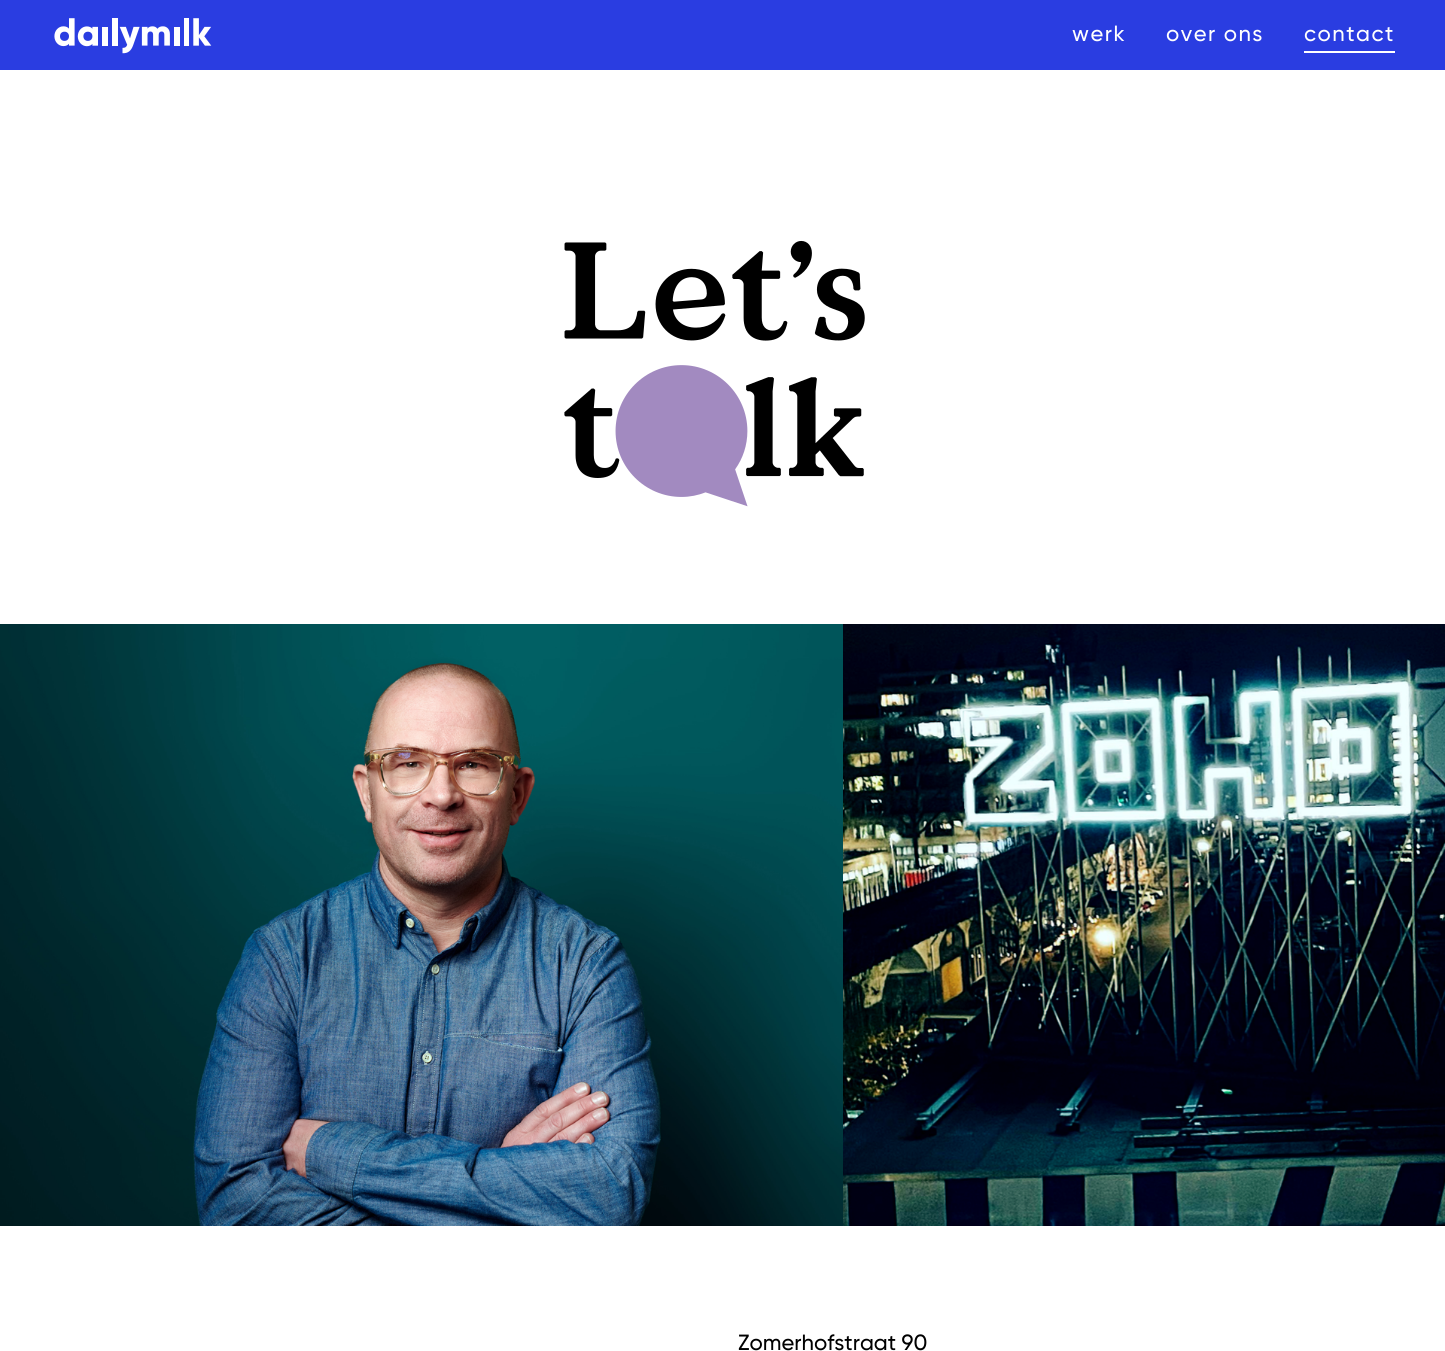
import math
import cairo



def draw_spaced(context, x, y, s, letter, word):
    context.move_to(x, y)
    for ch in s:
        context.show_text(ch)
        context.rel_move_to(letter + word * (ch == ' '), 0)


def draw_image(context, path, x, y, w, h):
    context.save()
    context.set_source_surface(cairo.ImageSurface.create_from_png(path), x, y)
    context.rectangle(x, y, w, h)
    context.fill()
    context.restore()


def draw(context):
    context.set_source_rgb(1, 1, 1)
    context.paint()
    context.set_source_rgb(42 / 255, 61 / 255, 225 / 255)
    context.rectangle(0, 0, 1445, 70)
    context.fill()
    draw_image(context, "images/1.png", 54, 18, 158, 36)
    context.set_source_rgb(1, 1, 1)
    context.rectangle(1304, 51, 91, 2)
    context.fill()
    draw_image(context, "images/2.png", 564, 240, 301, 267)
    draw_image(context, "images/3.png", 0, 624, 1445, 602)
    context.select_font_face("Gilroy")
    context.set_font_size(22)
    draw_spaced(context, 1072, 41, "werk", 1.5, 0)
    draw_spaced(context, 1166, 41, "over ons", 1.5, 0)
    draw_spaced(context, 1304, 41, "contact", 1.5, 0)
    context.set_source_rgb(0, 0, 0)
    context.move_to(738, 1350)
    context.show_text("Zomerhofstraat 90")


surface = cairo.ImageSurface(cairo.Format.RGB24, 1445, 1351)
context = cairo.Context(surface)
options = cairo.FontOptions()
options.set_hint_metrics(cairo.HintMetrics.OFF)
options.set_hint_style(cairo.HintStyle.NONE)
context.set_font_options(options)
context.set_miter_limit(4)
draw(context)
surface.write_to_png("out.png")
